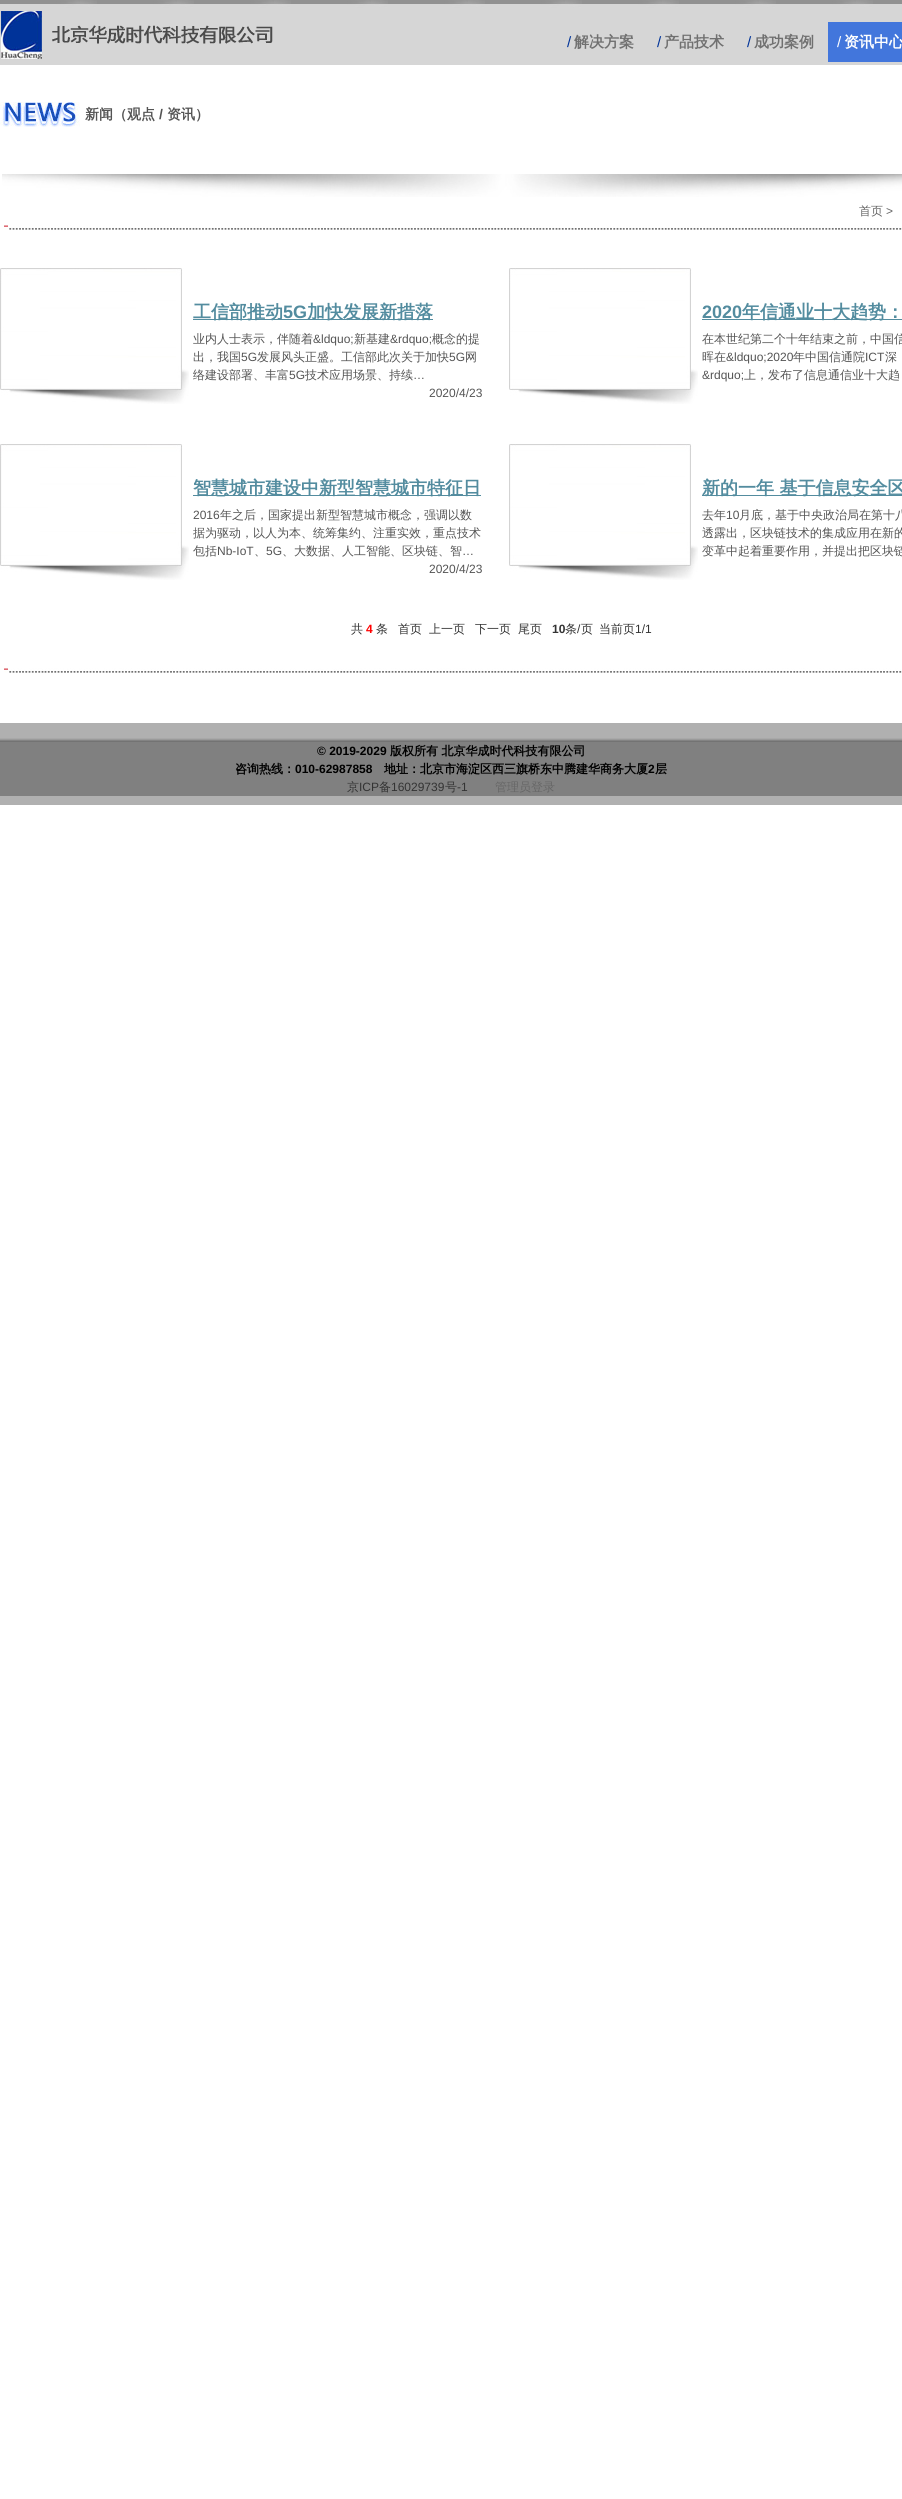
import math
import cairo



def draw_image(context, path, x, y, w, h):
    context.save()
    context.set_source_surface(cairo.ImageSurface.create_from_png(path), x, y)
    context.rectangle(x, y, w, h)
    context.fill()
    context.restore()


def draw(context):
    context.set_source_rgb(1, 1, 1)
    context.paint()
    draw_image(context, "images/1.png", 0, 0, 902, 65)
    draw_image(context, "images/2.png", 1, 11, 272, 48)
    context.set_source_rgb(66 / 255, 118 / 255, 220 / 255)
    context.rectangle(828, 22, 74, 40)
    context.fill()
    draw_image(context, "images/3.png", 0, 102, 80, 25)
    draw_image(context, "images/4.png", 2, 174, 900, 23)
    draw_image(context, "images/5.png", 3, 225, 899, 5)
    draw_image(context, "images/6.png", 0, 268, 189, 136)
    context.set_source_rgb(83 / 255, 140 / 255, 159 / 255)
    context.rectangle(193, 319, 240, 1)
    context.fill()
    draw_image(context, "images/6.png", 509, 268, 189, 136)
    context.rectangle(702, 319, 200, 1)
    context.fill()
    draw_image(context, "images/6.png", 0, 444, 189, 136)
    context.rectangle(193, 495, 288, 1)
    context.fill()
    draw_image(context, "images/6.png", 509, 444, 189, 136)
    context.rectangle(702, 495, 200, 1)
    context.fill()
    draw_image(context, "images/5.png", 3, 668, 899, 5)
    draw_image(context, "images/7.png", 0, 723, 902, 19)
    context.set_source_rgb(128 / 255, 128 / 255, 128 / 255)
    context.rectangle(0, 742, 902, 54)
    context.fill()
    context.set_source_rgb(176 / 255, 176 / 255, 176 / 255)
    context.rectangle(0, 796, 902, 9)
    context.fill()
    context.select_font_face("Liberation Sans")
    context.set_font_size(15)
    context.set_source_rgb(0, 51 / 255, 153 / 255)
    context.move_to(567, 47)
    context.show_text("/")
    context.select_font_face("WenQuanYi Zen Hei", cairo.FontSlant.NORMAL, cairo.FontWeight.BOLD)
    context.set_source_rgb(112 / 255, 112 / 255, 112 / 255)
    context.move_to(574, 47)
    context.show_text("解决方案")
    context.select_font_face("Liberation Sans")
    context.set_source_rgb(0, 51 / 255, 153 / 255)
    context.move_to(657, 47)
    context.show_text("/")
    context.select_font_face("WenQuanYi Zen Hei", cairo.FontSlant.NORMAL, cairo.FontWeight.BOLD)
    context.set_source_rgb(112 / 255, 112 / 255, 112 / 255)
    context.move_to(664, 47)
    context.show_text("产品技术")
    context.select_font_face("Liberation Sans")
    context.set_source_rgb(0, 51 / 255, 153 / 255)
    context.move_to(747, 47)
    context.show_text("/")
    context.select_font_face("WenQuanYi Zen Hei", cairo.FontSlant.NORMAL, cairo.FontWeight.BOLD)
    context.set_source_rgb(112 / 255, 112 / 255, 112 / 255)
    context.move_to(754, 47)
    context.show_text("成功案例")
    context.select_font_face("Liberation Sans")
    context.set_source_rgb(1, 1, 1)
    context.move_to(837, 47)
    context.show_text("/")
    context.select_font_face("WenQuanYi Zen Hei", cairo.FontSlant.NORMAL, cairo.FontWeight.BOLD)
    context.move_to(844, 47)
    context.show_text("资讯中心")
    context.set_font_size(14)
    context.set_source_rgb(84 / 255, 84 / 255, 84 / 255)
    context.move_to(85, 119)
    context.show_text("新闻（观点")
    context.select_font_face("Liberation Sans", cairo.FontSlant.NORMAL, cairo.FontWeight.BOLD)
    context.move_to(159, 119)
    context.show_text("/")
    context.select_font_face("WenQuanYi Zen Hei", cairo.FontSlant.NORMAL, cairo.FontWeight.BOLD)
    context.move_to(167, 119)
    context.show_text("资讯）")
    context.select_font_face("WenQuanYi Zen Hei Medium")
    context.set_font_size(12)
    context.set_source_rgb(102 / 255, 102 / 255, 102 / 255)
    context.move_to(859, 215)
    context.show_text("首页")
    context.select_font_face("Liberation Sans")
    context.move_to(886, 215)
    context.show_text(">")
    context.select_font_face("WenQuanYi Zen Hei", cairo.FontSlant.NORMAL, cairo.FontWeight.BOLD)
    context.set_font_size(18)
    context.set_source_rgb(83 / 255, 140 / 255, 159 / 255)
    context.move_to(193, 318)
    context.show_text("工信部推动")
    context.select_font_face("Liberation Sans", cairo.FontSlant.NORMAL, cairo.FontWeight.BOLD)
    context.move_to(283, 318)
    context.show_text("5G")
    context.select_font_face("WenQuanYi Zen Hei", cairo.FontSlant.NORMAL, cairo.FontWeight.BOLD)
    context.move_to(307, 318)
    context.show_text("加快发展新措落")
    context.select_font_face("WenQuanYi Zen Hei Medium")
    context.set_font_size(12)
    context.set_source_rgb(84 / 255, 84 / 255, 84 / 255)
    context.move_to(193, 343)
    context.show_text("业内人士表示，伴随着")
    context.select_font_face("Liberation Sans")
    context.move_to(313, 343)
    context.show_text("&ldquo;")
    context.select_font_face("WenQuanYi Zen Hei Medium")
    context.move_to(354, 343)
    context.show_text("新基建")
    context.select_font_face("Liberation Sans")
    context.move_to(390, 343)
    context.show_text("&rdquo;")
    context.select_font_face("WenQuanYi Zen Hei Medium")
    context.move_to(432, 343)
    context.show_text("概念的提")
    context.move_to(193, 361)
    context.show_text("出，我国")
    context.select_font_face("Liberation Sans")
    context.move_to(241, 361)
    context.show_text("5G")
    context.select_font_face("WenQuanYi Zen Hei Medium")
    context.move_to(257, 361)
    context.show_text("发展风头正盛。工信部此次关于加快")
    context.select_font_face("Liberation Sans")
    context.move_to(449, 361)
    context.show_text("5G")
    context.select_font_face("WenQuanYi Zen Hei Medium")
    context.move_to(465, 361)
    context.show_text("网")
    context.move_to(193, 379)
    context.show_text("络建设部署、丰富")
    context.select_font_face("Liberation Sans")
    context.move_to(289, 379)
    context.show_text("5G")
    context.select_font_face("WenQuanYi Zen Hei Medium")
    context.move_to(305, 379)
    context.show_text("技术应用场景、持续")
    context.select_font_face("Liberation Sans")
    context.move_to(413, 379)
    context.show_text("…")
    context.move_to(429, 397)
    context.show_text("2020/4/23")
    context.select_font_face("Liberation Sans", cairo.FontSlant.NORMAL, cairo.FontWeight.BOLD)
    context.set_font_size(18)
    context.set_source_rgb(83 / 255, 140 / 255, 159 / 255)
    context.move_to(702, 318)
    context.show_text("2020")
    context.select_font_face("WenQuanYi Zen Hei", cairo.FontSlant.NORMAL, cairo.FontWeight.BOLD)
    context.move_to(742, 318)
    context.show_text("年信通业十大趋势：")
    context.select_font_face("WenQuanYi Zen Hei Medium")
    context.set_font_size(12)
    context.set_source_rgb(84 / 255, 84 / 255, 84 / 255)
    context.move_to(702, 343)
    context.show_text("在本世纪第二个十年结束之前，中国信")
    context.move_to(702, 361)
    context.show_text("晖在")
    context.select_font_face("Liberation Sans")
    context.move_to(726, 361)
    context.show_text("&ldquo;2020")
    context.select_font_face("WenQuanYi Zen Hei Medium")
    context.move_to(793, 361)
    context.show_text("年中国信通院")
    context.select_font_face("Liberation Sans")
    context.move_to(865, 361)
    context.show_text("ICT")
    context.select_font_face("WenQuanYi Zen Hei Medium")
    context.move_to(885, 361)
    context.show_text("深")
    context.select_font_face("Liberation Sans")
    context.move_to(702, 379)
    context.show_text("&rdquo;")
    context.select_font_face("WenQuanYi Zen Hei Medium")
    context.move_to(744, 379)
    context.show_text("上，发布了信息通信业十大趋")
    context.select_font_face("WenQuanYi Zen Hei", cairo.FontSlant.NORMAL, cairo.FontWeight.BOLD)
    context.set_font_size(18)
    context.set_source_rgb(83 / 255, 140 / 255, 159 / 255)
    context.move_to(193, 494)
    context.show_text("智慧城市建设中新型智慧城市特征日")
    context.select_font_face("Liberation Sans")
    context.set_font_size(12)
    context.set_source_rgb(84 / 255, 84 / 255, 84 / 255)
    context.move_to(193, 519)
    context.show_text("2016")
    context.select_font_face("WenQuanYi Zen Hei Medium")
    context.move_to(220, 519)
    context.show_text("年之后，国家提出新型智慧城市概念，强调以数")
    context.move_to(193, 537)
    context.show_text("据为驱动，以人为本、统筹集约、注重实效，重点技术")
    context.move_to(193, 555)
    context.show_text("包括")
    context.select_font_face("Liberation Sans")
    context.move_to(217, 555)
    context.show_text("Nb-IoT")
    context.select_font_face("WenQuanYi Zen Hei Medium")
    context.move_to(254, 555)
    context.show_text("、")
    context.select_font_face("Liberation Sans")
    context.move_to(266, 555)
    context.show_text("5G")
    context.select_font_face("WenQuanYi Zen Hei Medium")
    context.move_to(282, 555)
    context.show_text("、大数据、人工智能、区块链、智")
    context.select_font_face("Liberation Sans")
    context.move_to(462, 555)
    context.show_text("…")
    context.move_to(429, 573)
    context.show_text("2020/4/23")
    context.select_font_face("WenQuanYi Zen Hei", cairo.FontSlant.NORMAL, cairo.FontWeight.BOLD)
    context.set_font_size(18)
    context.set_source_rgb(83 / 255, 140 / 255, 159 / 255)
    context.move_to(702, 494)
    context.show_text("新的一年 基于信息安全区")
    context.select_font_face("WenQuanYi Zen Hei Medium")
    context.set_font_size(12)
    context.set_source_rgb(84 / 255, 84 / 255, 84 / 255)
    context.move_to(702, 519)
    context.show_text("去年")
    context.select_font_face("Liberation Sans")
    context.move_to(726, 519)
    context.show_text("10")
    context.select_font_face("WenQuanYi Zen Hei Medium")
    context.move_to(739, 519)
    context.show_text("月底，基于中央政治局在第十八")
    context.move_to(702, 537)
    context.show_text("透露出，区块链技术的集成应用在新的")
    context.move_to(702, 555)
    context.show_text("变革中起着重要作用，并提出把区块链")
    context.set_source_rgb(51 / 255, 51 / 255, 51 / 255)
    context.move_to(351, 633)
    context.show_text("共")
    context.select_font_face("Liberation Sans", cairo.FontSlant.NORMAL, cairo.FontWeight.BOLD)
    context.set_source_rgb(1, 0, 0)
    context.move_to(366, 633)
    context.show_text("4")
    context.select_font_face("WenQuanYi Zen Hei Medium")
    context.set_source_rgb(51 / 255, 51 / 255, 51 / 255)
    context.move_to(376, 633)
    context.show_text("条")
    context.move_to(398, 633)
    context.show_text("首页")
    context.move_to(429, 633)
    context.show_text("上一页")
    context.move_to(475, 633)
    context.show_text("下一页")
    context.move_to(518, 633)
    context.show_text("尾页")
    context.select_font_face("Liberation Sans", cairo.FontSlant.NORMAL, cairo.FontWeight.BOLD)
    context.move_to(552, 633)
    context.show_text("10")
    context.select_font_face("WenQuanYi Zen Hei Medium")
    context.move_to(565, 633)
    context.show_text("条")
    context.select_font_face("Liberation Sans")
    context.move_to(577, 633)
    context.show_text("/")
    context.select_font_face("WenQuanYi Zen Hei Medium")
    context.move_to(581, 633)
    context.show_text("页")
    context.move_to(599, 633)
    context.show_text("当前页")
    context.select_font_face("Liberation Sans")
    context.move_to(635, 633)
    context.show_text("1/1")
    context.select_font_face("Liberation Sans", cairo.FontSlant.NORMAL, cairo.FontWeight.BOLD)
    context.set_source_rgb(0, 0, 0)
    context.move_to(317, 755)
    context.show_text("© 2019-2029")
    context.select_font_face("WenQuanYi Zen Hei", cairo.FontSlant.NORMAL, cairo.FontWeight.BOLD)
    context.move_to(390, 755)
    context.show_text("版权所有 北京华成时代科技有限公司")
    context.move_to(235, 773)
    context.show_text("咨询热线：")
    context.select_font_face("Liberation Sans", cairo.FontSlant.NORMAL, cairo.FontWeight.BOLD)
    context.move_to(295, 773)
    context.show_text("010-62987858")
    context.select_font_face("WenQuanYi Zen Hei", cairo.FontSlant.NORMAL, cairo.FontWeight.BOLD)
    context.move_to(384, 773)
    context.show_text("地址：北京市海淀区西三旗桥东中腾建华商务大厦")
    context.select_font_face("Liberation Sans", cairo.FontSlant.NORMAL, cairo.FontWeight.BOLD)
    context.move_to(648, 773)
    context.show_text("2")
    context.select_font_face("WenQuanYi Zen Hei", cairo.FontSlant.NORMAL, cairo.FontWeight.BOLD)
    context.move_to(655, 773)
    context.show_text("层")
    context.select_font_face("WenQuanYi Zen Hei Medium")
    context.set_source_rgb(51 / 255, 51 / 255, 51 / 255)
    context.move_to(347, 791)
    context.show_text("京")
    context.select_font_face("Liberation Sans")
    context.move_to(359, 791)
    context.show_text("ICP")
    context.select_font_face("WenQuanYi Zen Hei Medium")
    context.move_to(379, 791)
    context.show_text("备")
    context.select_font_face("Liberation Sans")
    context.move_to(391, 791)
    context.show_text("16029739")
    context.select_font_face("WenQuanYi Zen Hei Medium")
    context.move_to(445, 791)
    context.show_text("号")
    context.select_font_face("Liberation Sans")
    context.move_to(457, 791)
    context.show_text("-1")
    context.select_font_face("WenQuanYi Zen Hei Medium")
    context.set_source_rgb(102 / 255, 102 / 255, 102 / 255)
    context.move_to(495, 791)
    context.show_text("管理员登录")


surface = cairo.ImageSurface(cairo.Format.RGB24, 902, 2499)
context = cairo.Context(surface)
options = cairo.FontOptions()
options.set_hint_metrics(cairo.HintMetrics.OFF)
options.set_hint_style(cairo.HintStyle.NONE)
context.set_font_options(options)
context.set_miter_limit(4)
draw(context)
surface.write_to_png("out.png")
